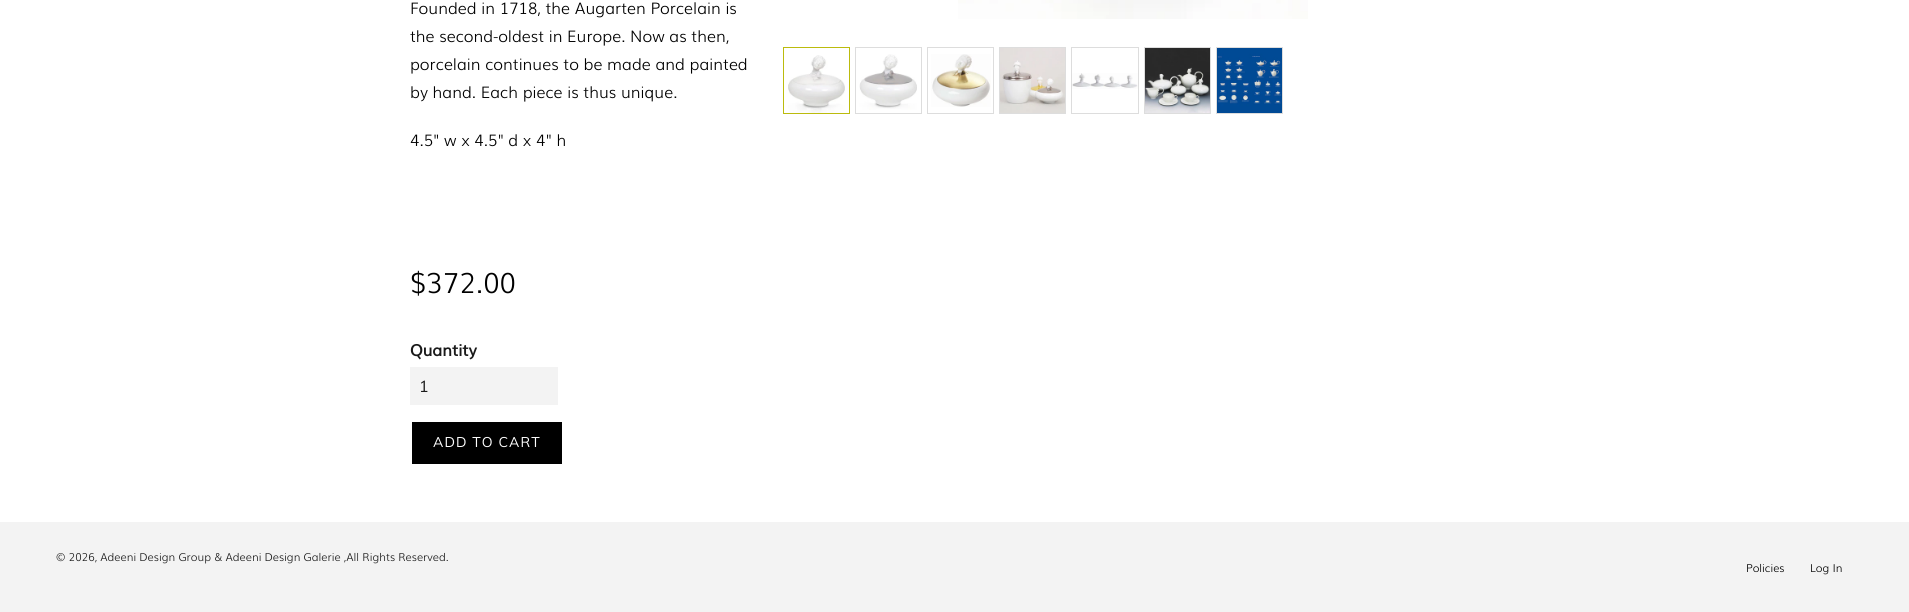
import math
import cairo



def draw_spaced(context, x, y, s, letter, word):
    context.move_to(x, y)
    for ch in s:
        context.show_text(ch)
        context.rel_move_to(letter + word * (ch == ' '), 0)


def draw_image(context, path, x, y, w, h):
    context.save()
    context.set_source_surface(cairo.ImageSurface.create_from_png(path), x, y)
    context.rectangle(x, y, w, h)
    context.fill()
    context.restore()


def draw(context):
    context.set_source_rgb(1, 1, 1)
    context.paint()
    context.set_source_rgb(243 / 255, 243 / 255, 243 / 255)
    context.rectangle(410, 367, 148, 38)
    context.fill()
    context.set_source_rgb(0, 0, 0)
    context.rectangle(412, 422, 150, 42)
    context.fill()
    draw_image(context, "images/1.png", 958, 0, 350, 19)
    context.rectangle(783.5, 47.5, 66, 66)
    context.set_source_rgb(187 / 255, 187 / 255, 13 / 255)
    context.set_line_width(1)
    context.stroke()
    draw_image(context, "images/2.png", 788, 55, 57, 58)
    context.rectangle(855.5, 47.5, 66, 66)
    context.set_source_rgb(221 / 255, 221 / 255, 221 / 255)
    context.stroke()
    draw_image(context, "images/3.png", 859, 54, 58, 56)
    context.rectangle(927.5, 47.5, 66, 66)
    context.stroke()
    draw_image(context, "images/4.png", 931, 54, 60, 53)
    context.rectangle(999.5, 47.5, 66, 66)
    context.stroke()
    draw_image(context, "images/5.png", 1000, 48, 65, 65)
    context.rectangle(1071.5, 47.5, 67, 66)
    context.stroke()
    draw_image(context, "images/6.png", 1072, 73, 66, 16)
    context.rectangle(1144.5, 47.5, 66, 66)
    context.stroke()
    draw_image(context, "images/7.png", 1145, 48, 65, 65)
    context.rectangle(1216.5, 47.5, 66, 66)
    context.stroke()
    draw_image(context, "images/8.png", 1217, 48, 65, 65)
    context.set_source_rgb(243 / 255, 243 / 255, 243 / 255)
    context.rectangle(0, 522, 1909, 90)
    context.fill()
    context.select_font_face("Muli Light")
    context.set_font_size(16)
    context.set_source_rgb(0, 0, 0)
    context.move_to(410, 14)
    context.show_text("Founded in 1718, the Augarten Porcelain is")
    context.move_to(410, 42)
    context.show_text("the second-oldest in Europe. Now as then,")
    context.move_to(410, 70)
    context.show_text("porcelain continues to be made and painted")
    context.move_to(410, 98)
    context.show_text("by hand. Each piece is thus unique.")
    context.move_to(410, 146)
    context.show_text("4.5\" w x 4.5\" d x 4\" h")
    context.set_font_size(28)
    context.move_to(410, 293)
    context.show_text("$372.00")
    context.select_font_face("Muli", cairo.FontSlant.NORMAL, cairo.FontWeight.BOLD)
    context.set_font_size(16)
    context.set_source_rgb(26 / 255, 26 / 255, 26 / 255)
    context.move_to(410, 356)
    context.show_text("Quantity")
    context.select_font_face("Muli")
    context.move_to(419, 392)
    context.show_text("1")
    context.set_font_size(14)
    context.set_source_rgb(1, 1, 1)
    draw_spaced(context, 433, 447, "ADD TO CART", 1.1, 0)
    context.select_font_face("Muli Light")
    context.set_font_size(11)
    context.set_source_rgb(26 / 255, 26 / 255, 26 / 255)
    context.move_to(56, 561)
    context.show_text("© 2026, Adeeni Design Group & Adeeni Design Galerie ,All Rights Reserved.")
    context.set_source_rgb(0, 0, 0)
    context.move_to(1746, 572)
    context.show_text("Policies")
    context.move_to(1810, 572)
    context.show_text("Log In")


surface = cairo.ImageSurface(cairo.Format.RGB24, 1909, 612)
context = cairo.Context(surface)
options = cairo.FontOptions()
options.set_hint_metrics(cairo.HintMetrics.OFF)
options.set_hint_style(cairo.HintStyle.NONE)
context.set_font_options(options)
context.set_miter_limit(4)
draw(context)
surface.write_to_png("out.png")
